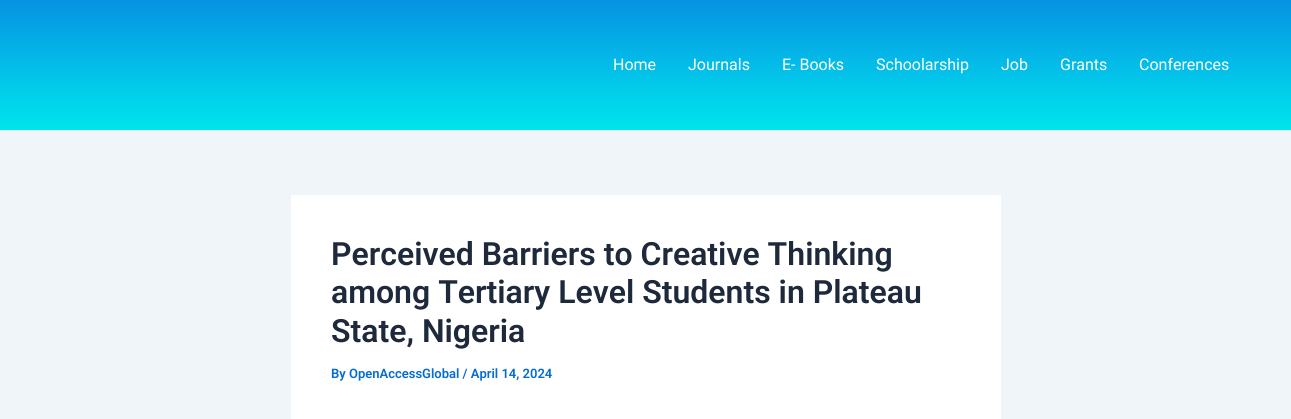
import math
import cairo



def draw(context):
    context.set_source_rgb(240 / 255, 245 / 255, 250 / 255)
    context.paint()
    gradient = cairo.LinearGradient(646, 0, 646, 130)
    gradient.add_color_stop_rgba(0, 6 / 255, 147 / 255, 227 / 255, 1)
    gradient.add_color_stop_rgba(1, 0, 229 / 255, 237 / 255, 1)
    context.set_source(gradient)
    context.rectangle(0, 0, 1291, 130)
    context.fill()
    context.set_source_rgb(234 / 255, 234 / 255, 234 / 255)
    context.rectangle(0, 130, 1291, 1)
    context.fill()
    context.set_source_rgb(1, 1, 1)
    context.rectangle(291, 195, 710, 224)
    context.fill()
    context.select_font_face("Roboto")
    context.set_font_size(16)
    context.move_to(613, 70)
    context.show_text("Home")
    context.move_to(688, 70)
    context.show_text("Journals")
    context.move_to(782, 70)
    context.show_text("E- Books")
    context.move_to(876, 70)
    context.show_text("Schoolarship")
    context.move_to(1001, 70)
    context.show_text("Job")
    context.move_to(1060, 70)
    context.show_text("Grants")
    context.move_to(1139, 70)
    context.show_text("Conferences")
    context.select_font_face("Roboto SemiBold")
    context.set_font_size(32)
    context.set_source_rgb(30 / 255, 41 / 255, 59 / 255)
    context.move_to(331, 265)
    context.show_text("Perceived Barriers to Creative Thinking")
    context.move_to(331, 303)
    context.show_text("among Tertiary Level Students in Plateau")
    context.move_to(331, 342)
    context.show_text("State, Nigeria")
    context.set_font_size(13)
    context.set_source_rgb(4 / 255, 107 / 255, 210 / 255)
    context.move_to(331, 378)
    context.show_text("By OpenAccessGlobal / April 14, 2024")


surface = cairo.ImageSurface(cairo.Format.RGB24, 1291, 419)
context = cairo.Context(surface)
options = cairo.FontOptions()
options.set_hint_metrics(cairo.HintMetrics.OFF)
options.set_hint_style(cairo.HintStyle.NONE)
context.set_font_options(options)
context.set_miter_limit(4)
draw(context)
surface.write_to_png("out.png")
